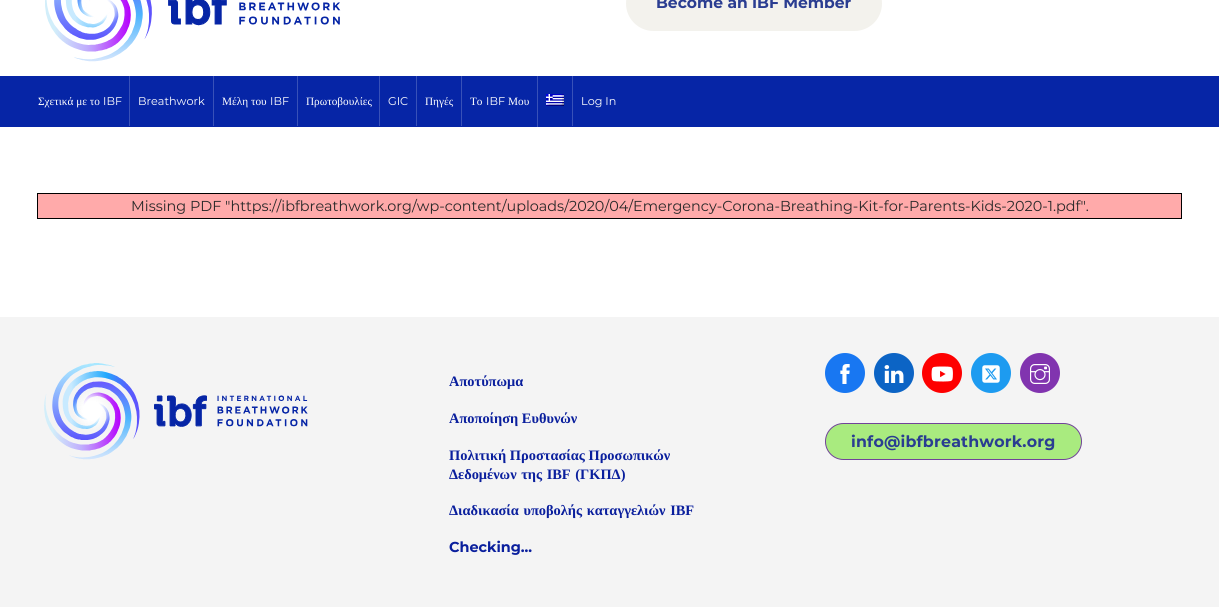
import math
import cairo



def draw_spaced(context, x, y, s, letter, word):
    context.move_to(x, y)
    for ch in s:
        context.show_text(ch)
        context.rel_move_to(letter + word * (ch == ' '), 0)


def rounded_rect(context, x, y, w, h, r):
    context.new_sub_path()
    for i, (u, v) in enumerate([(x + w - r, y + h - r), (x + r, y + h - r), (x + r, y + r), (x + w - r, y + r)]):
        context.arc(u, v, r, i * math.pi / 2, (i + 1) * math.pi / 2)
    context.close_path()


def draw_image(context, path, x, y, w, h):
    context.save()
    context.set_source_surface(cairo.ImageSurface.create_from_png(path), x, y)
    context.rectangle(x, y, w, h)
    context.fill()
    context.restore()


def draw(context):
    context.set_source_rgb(1, 1, 1)
    context.paint()
    context.set_source_rgb(243 / 255, 242 / 255, 237 / 255)
    rounded_rect(context, 626, -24, 256, 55, 27.5)
    context.fill()
    context.set_source_rgb(6 / 255, 37 / 255, 166 / 255)
    context.rectangle(0, 76, 1219, 51)
    context.fill()
    context.set_source_rgb(56 / 255, 81 / 255, 184 / 255)
    context.rectangle(129, 76, 1, 50)
    context.fill()
    context.rectangle(213, 76, 1, 50)
    context.fill()
    context.rectangle(297, 76, 1, 50)
    context.fill()
    context.rectangle(379, 76, 1, 50)
    context.fill()
    context.rectangle(416, 76, 1, 50)
    context.fill()
    context.rectangle(461, 76, 1, 50)
    context.fill()
    context.rectangle(537, 76, 1, 51)
    context.fill()
    draw_image(context, "images/1.png", 546, 94, 18, 12)
    context.rectangle(572, 76, 1, 50)
    context.fill()
    draw_image(context, "images/2.png", 45, 0, 296, 62)
    context.rectangle(37.5, 193.5, 1144, 25)
    context.set_source_rgb(0, 0, 0)
    context.set_line_width(1)
    context.stroke()
    context.set_source_rgb(1, 170 / 255, 170 / 255)
    context.rectangle(38, 194, 1143, 24)
    context.fill()
    context.set_source_rgb(244 / 255, 244 / 255, 244 / 255)
    context.rectangle(0, 317, 1219, 290)
    context.fill()
    draw_image(context, "images/3.png", 44, 363, 264, 97)
    context.set_source_rgb(24 / 255, 119 / 255, 242 / 255)
    context.arc(845, 373, 20, 0, 2 * math.pi)
    context.fill()
    draw_image(context, "images/4.png", 840, 364, 10, 20)
    context.set_source_rgb(12 / 255, 100 / 255, 197 / 255)
    context.arc(894, 373, 20, 0, 2 * math.pi)
    context.fill()
    draw_image(context, "images/5.png", 884, 365, 20, 18)
    context.set_source_rgb(254 / 255, 0, 0)
    context.arc(942, 373, 20, 0, 2 * math.pi)
    context.fill()
    draw_image(context, "images/6.png", 931, 366, 22, 16)
    context.set_source_rgb(29 / 255, 155 / 255, 240 / 255)
    context.arc(991, 373, 20, 0, 2 * math.pi)
    context.fill()
    draw_image(context, "images/7.png", 982, 365, 18, 18)
    context.set_source_rgb(129 / 255, 52 / 255, 175 / 255)
    context.arc(1040, 373, 20, 0, 2 * math.pi)
    context.fill()
    draw_image(context, "images/8.png", 1030, 364, 20, 20)
    context.set_source_rgb(169 / 255, 235 / 255, 127 / 255)
    rounded_rect(context, 825.5, 423.5, 256, 36, 18)
    context.fill_preserve()
    context.set_source_rgb(113 / 255, 67 / 255, 153 / 255)
    context.stroke()
    context.select_font_face("Montserrat", cairo.FontSlant.NORMAL, cairo.FontWeight.BOLD)
    context.set_font_size(15.5)
    context.set_source_rgb(42 / 255, 61 / 255, 145 / 255)
    context.move_to(656, 8)
    context.show_text("Become an IBF Member")
    context.select_font_face("Liberation Serif")
    context.set_font_size(11.25)
    context.set_source_rgb(1, 1, 1)
    context.move_to(38, 105)
    context.show_text("Σχετικά με το")
    context.select_font_face("Montserrat")
    context.move_to(103, 105)
    context.show_text("IBF")
    context.move_to(138, 105)
    context.show_text("Breathwork")
    context.select_font_face("Liberation Serif")
    context.move_to(222, 105)
    context.show_text("Μέλη του")
    context.select_font_face("Montserrat")
    context.move_to(270, 105)
    context.show_text("IBF")
    context.select_font_face("Liberation Serif")
    context.move_to(306, 105)
    context.show_text("Πρωτοβουλίες")
    context.select_font_face("Montserrat")
    context.move_to(388, 105)
    context.show_text("GIC")
    context.select_font_face("Liberation Serif")
    context.move_to(425, 105)
    context.show_text("Πηγές")
    context.move_to(470, 105)
    context.show_text("Το")
    context.select_font_face("Montserrat")
    context.move_to(486, 105)
    context.show_text("IBF")
    context.select_font_face("Liberation Serif")
    context.move_to(508, 105)
    context.show_text("Μου")
    context.select_font_face("Montserrat")
    context.move_to(581, 105)
    context.show_text("Log In")
    context.set_font_size(14.4)
    context.set_source_rgb(41 / 255, 41 / 255, 41 / 255)
    context.move_to(131, 211)
    context.show_text("Missing PDF \"https://ibfbreathwork.org/wp-content/uploads/2020/04/Emergency-Corona-Breathing-Kit-for-Parents-Kids-2020-1.pdf\".")
    context.select_font_face("Liberation Serif", cairo.FontSlant.NORMAL, cairo.FontWeight.BOLD)
    context.set_source_rgb(10 / 255, 31 / 255, 157 / 255)
    context.move_to(449, 386)
    context.show_text("Αποτύπωμα")
    context.move_to(449, 423)
    context.show_text("Αποποίηση Ευθυνών")
    context.move_to(449, 460)
    context.show_text("Πολιτική Προστασίας Προσωπικών")
    draw_spaced(context, 449, 479, "Δεδομένων της IBF (ΓΚΠΔ)", 0, 1)
    draw_spaced(context, 449, 515, "Διαδικασία υποβολής καταγγελιών IBF", 0, 1)
    context.select_font_face("Montserrat", cairo.FontSlant.NORMAL, cairo.FontWeight.BOLD)
    context.move_to(449, 552)
    context.show_text("Checking...")
    context.set_font_size(15.8)
    context.set_source_rgb(42 / 255, 61 / 255, 145 / 255)
    draw_spaced(context, 851, 447, "info@ibfbreathwork.org", 0.2, 0)


surface = cairo.ImageSurface(cairo.Format.RGB24, 1219, 607)
context = cairo.Context(surface)
options = cairo.FontOptions()
options.set_hint_metrics(cairo.HintMetrics.OFF)
options.set_hint_style(cairo.HintStyle.NONE)
context.set_font_options(options)
context.set_miter_limit(4)
draw(context)
surface.write_to_png("out.png")
